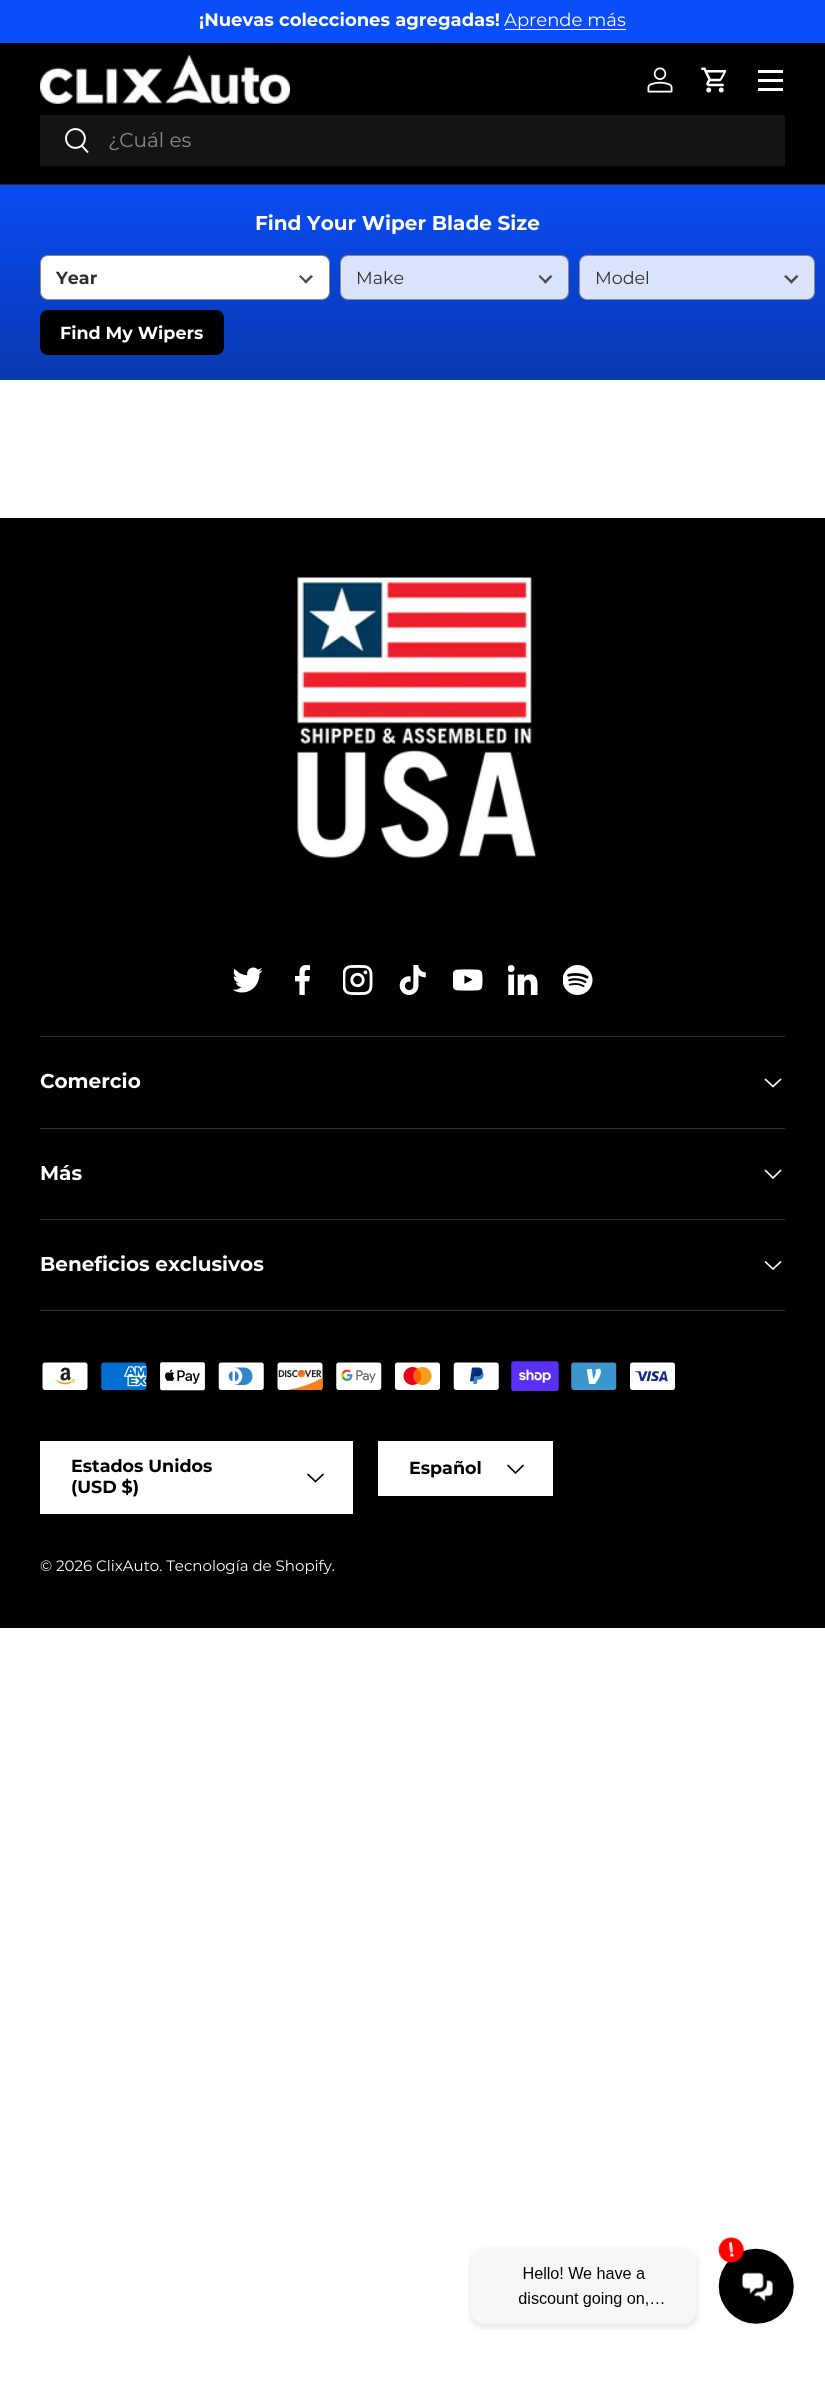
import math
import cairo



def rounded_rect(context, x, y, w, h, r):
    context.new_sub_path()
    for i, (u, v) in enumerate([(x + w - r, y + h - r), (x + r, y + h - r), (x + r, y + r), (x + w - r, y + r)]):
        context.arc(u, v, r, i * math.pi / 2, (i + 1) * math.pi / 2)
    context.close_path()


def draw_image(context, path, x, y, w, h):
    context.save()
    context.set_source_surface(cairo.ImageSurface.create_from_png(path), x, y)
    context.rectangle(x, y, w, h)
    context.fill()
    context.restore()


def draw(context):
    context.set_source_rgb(1, 1, 1)
    context.paint()
    context.set_source_rgb(10 / 255, 78 / 255, 249 / 255)
    context.rectangle(0, 0, 825, 43)
    context.fill()
    context.set_source_rgb(1, 1, 1)
    context.rectangle(505, 29, 121, 1)
    context.fill()
    context.set_source_rgb(0, 0, 0)
    context.rectangle(0, 43, 825, 141)
    context.fill()
    context.set_source_rgb(38 / 255, 38 / 255, 38 / 255)
    context.rectangle(0, 184, 825, 1)
    context.fill()
    draw_image(context, "images/1.png", 40, 55, 250, 49)
    draw_image(context, "images/2.png", 647, 67, 26, 26)
    draw_image(context, "images/3.png", 701, 67, 26, 26)
    context.set_source_rgb(1, 1, 1)
    context.rectangle(758, 70, 25, 3)
    context.fill()
    context.rectangle(758, 88, 25, 3)
    context.fill()
    context.rectangle(758, 79, 25, 3)
    context.fill()
    context.set_source_rgb(20 / 255, 20 / 255, 20 / 255)
    context.rectangle(40, 115, 745, 51)
    context.fill()
    draw_image(context, "images/4.png", 65, 128, 24, 26)
    gradient = cairo.LinearGradient(413, 175, 413, 380)
    gradient.add_color_stop_rgba(0, 10 / 255, 78 / 255, 249 / 255, 1)
    gradient.add_color_stop_rgba(1, 9 / 255, 56 / 255, 175 / 255, 1)
    context.set_source(gradient)
    context.rectangle(0, 185, 825, 195)
    context.fill()
    context.set_source_rgb(1, 1, 1)
    rounded_rect(context, 41, 256, 288, 43, 6)
    context.fill()
    rounded_rect(context, 40.5, 255.5, 289, 44, 7.5)
    context.set_source_rgb(138 / 255, 138 / 255, 138 / 255)
    context.set_line_width(1)
    context.stroke()
    context.set_source_rgb(74 / 255, 74 / 255, 74 / 255)
    context.new_path()
    context.move_to(311, 275)
    context.line_to(313, 276.5)
    context.line_to(306, 283.5)
    context.line_to(304, 282)
    context.close_path()
    context.fill()
    context.new_path()
    context.move_to(300.5, 275)
    context.line_to(307.5, 282)
    context.line_to(306, 283.5)
    context.line_to(299, 276.5)
    context.close_path()
    context.fill()
    context.set_source_rgb(218 / 255, 227 / 255, 250 / 255)
    rounded_rect(context, 341, 256, 227, 43, 6)
    context.fill()
    rounded_rect(context, 340.5, 255.5, 228, 44, 7.5)
    context.set_source_rgb(138 / 255, 138 / 255, 138 / 255)
    context.stroke()
    context.set_source_rgb(74 / 255, 74 / 255, 74 / 255)
    context.new_path()
    context.move_to(550.5, 275)
    context.line_to(552.5, 276.5)
    context.line_to(545.5, 283.5)
    context.line_to(543.5, 282)
    context.close_path()
    context.fill()
    context.new_path()
    context.move_to(540, 275)
    context.line_to(547, 282)
    context.line_to(545.5, 283.5)
    context.line_to(538.5, 276.5)
    context.close_path()
    context.fill()
    context.set_source_rgb(218 / 255, 227 / 255, 250 / 255)
    rounded_rect(context, 580, 256, 234, 43, 6)
    context.fill()
    rounded_rect(context, 579.5, 255.5, 235, 44, 7.5)
    context.set_source_rgb(138 / 255, 138 / 255, 138 / 255)
    context.stroke()
    context.set_source_rgb(74 / 255, 74 / 255, 74 / 255)
    context.new_path()
    context.move_to(796.5, 275)
    context.line_to(798.5, 276.5)
    context.line_to(791.5, 283.5)
    context.line_to(789.5, 282)
    context.close_path()
    context.fill()
    context.new_path()
    context.move_to(786, 275)
    context.line_to(793, 282)
    context.line_to(791.5, 283.5)
    context.line_to(784, 276.5)
    context.close_path()
    context.fill()
    context.set_source_rgb(0, 0, 0)
    rounded_rect(context, 40, 310, 184, 45, 8)
    context.fill()
    context.rectangle(0, 518, 825, 1110)
    context.fill()
    draw_image(context, "images/5.png", 297, 577, 240, 281)
    draw_image(context, "images/6.png", 233, 967, 30, 26)
    draw_image(context, "images/7.png", 295, 965, 15, 30)
    draw_image(context, "images/8.png", 343, 965, 30, 30)
    draw_image(context, "images/9.png", 399, 965, 27, 30)
    draw_image(context, "images/10.png", 453, 969, 30, 22)
    draw_image(context, "images/11.png", 508, 965, 30, 30)
    draw_image(context, "images/12.png", 563, 965, 30, 30)
    context.set_source_rgb(51 / 255, 51 / 255, 51 / 255)
    context.rectangle(40, 1036, 745, 1)
    context.fill()
    context.rectangle(40, 1128, 745, 1)
    context.fill()
    context.new_path()
    context.move_to(781, 1079)
    context.line_to(773, 1086.5)
    context.line_to(765, 1079)
    context.set_source_rgb(1, 1, 1)
    context.set_line_width(1.6)
    context.stroke()
    context.set_source_rgb(51 / 255, 51 / 255, 51 / 255)
    context.rectangle(40, 1219, 745, 1)
    context.fill()
    context.new_path()
    context.move_to(781, 1170)
    context.line_to(773, 1178)
    context.line_to(765, 1170)
    context.set_source_rgb(1, 1, 1)
    context.stroke()
    context.set_source_rgb(51 / 255, 51 / 255, 51 / 255)
    context.rectangle(40, 1310, 745, 1)
    context.fill()
    context.new_path()
    context.move_to(781, 1261.5)
    context.line_to(773, 1269)
    context.line_to(765, 1261.5)
    context.set_source_rgb(1, 1, 1)
    context.stroke()
    draw_image(context, "images/13.png", 42, 1362, 46, 28)
    draw_image(context, "images/14.png", 101, 1362, 46, 28)
    draw_image(context, "images/15.png", 160, 1362, 45, 29)
    draw_image(context, "images/16.png", 218, 1362, 46, 28)
    draw_image(context, "images/17.png", 277, 1362, 46, 28)
    draw_image(context, "images/18.png", 336, 1362, 46, 28)
    draw_image(context, "images/19.png", 395, 1362, 45, 28)
    draw_image(context, "images/20.png", 453, 1362, 46, 28)
    draw_image(context, "images/21.png", 511, 1361, 48, 30)
    draw_image(context, "images/22.png", 571, 1362, 46, 28)
    draw_image(context, "images/23.png", 630, 1362, 45, 28)
    context.rectangle(40, 1441, 313, 73)
    context.fill()
    context.new_path()
    context.move_to(323.5, 1474)
    context.line_to(315.5, 1481.5)
    context.line_to(307.5, 1474)
    context.set_source_rgb(0, 0, 0)
    context.stroke()
    context.set_source_rgb(1, 1, 1)
    context.rectangle(378, 1441, 175, 55)
    context.fill()
    context.new_path()
    context.move_to(523.5, 1465)
    context.line_to(515.5, 1473)
    context.line_to(507.5, 1465)
    context.set_source_rgb(0, 0, 0)
    context.stroke()
    draw_image(context, "images/24.png", 468, 2237, 326, 93)
    context.select_font_face("Montserrat", cairo.FontSlant.NORMAL, cairo.FontWeight.BOLD)
    context.set_font_size(18)
    context.set_source_rgb(1, 1, 1)
    context.move_to(199, 26)
    context.show_text("¡Nuevas colecciones agregadas!")
    context.select_font_face("Montserrat")
    context.move_to(504, 26)
    context.show_text("Aprende más")
    context.set_font_size(20)
    context.set_source_rgb(138 / 255, 138 / 255, 138 / 255)
    context.move_to(108, 147)
    context.show_text("¿Cuál es")
    context.select_font_face("Montserrat", cairo.FontSlant.NORMAL, cairo.FontWeight.BOLD)
    context.set_source_rgb(1, 1, 1)
    context.move_to(255, 230)
    context.show_text("Find Your Wiper Blade Size")
    context.set_font_size(17.5)
    context.set_source_rgb(48 / 255, 48 / 255, 48 / 255)
    context.move_to(56, 284)
    context.show_text("Year")
    context.select_font_face("Montserrat")
    context.move_to(356, 284)
    context.show_text("Make")
    context.move_to(595, 284)
    context.show_text("Model")
    context.select_font_face("Montserrat", cairo.FontSlant.NORMAL, cairo.FontWeight.BOLD)
    context.set_source_rgb(1, 1, 1)
    context.move_to(60, 339)
    context.show_text("Find My Wipers")
    context.set_font_size(20)
    context.move_to(40, 1088)
    context.show_text("Comercio")
    context.move_to(40, 1180)
    context.show_text("Más")
    context.move_to(40, 1271)
    context.show_text("Beneficios exclusivos")
    context.set_font_size(17.5)
    context.set_source_rgb(0, 0, 0)
    context.move_to(71, 1472)
    context.show_text("Estados Unidos")
    context.move_to(71, 1493)
    context.show_text("(USD $)")
    context.move_to(409, 1474)
    context.show_text("Español")
    context.select_font_face("Montserrat")
    context.set_font_size(15)
    context.set_source_rgb(1, 1, 1)
    context.move_to(40, 1571)
    context.show_text("© 2026 ClixAuto. Tecnología de Shopify.")


surface = cairo.ImageSurface(cairo.Format.RGB24, 825, 2392)
context = cairo.Context(surface)
options = cairo.FontOptions()
options.set_hint_metrics(cairo.HintMetrics.OFF)
options.set_hint_style(cairo.HintStyle.NONE)
context.set_font_options(options)
context.set_miter_limit(4)
draw(context)
surface.write_to_png("out.png")
